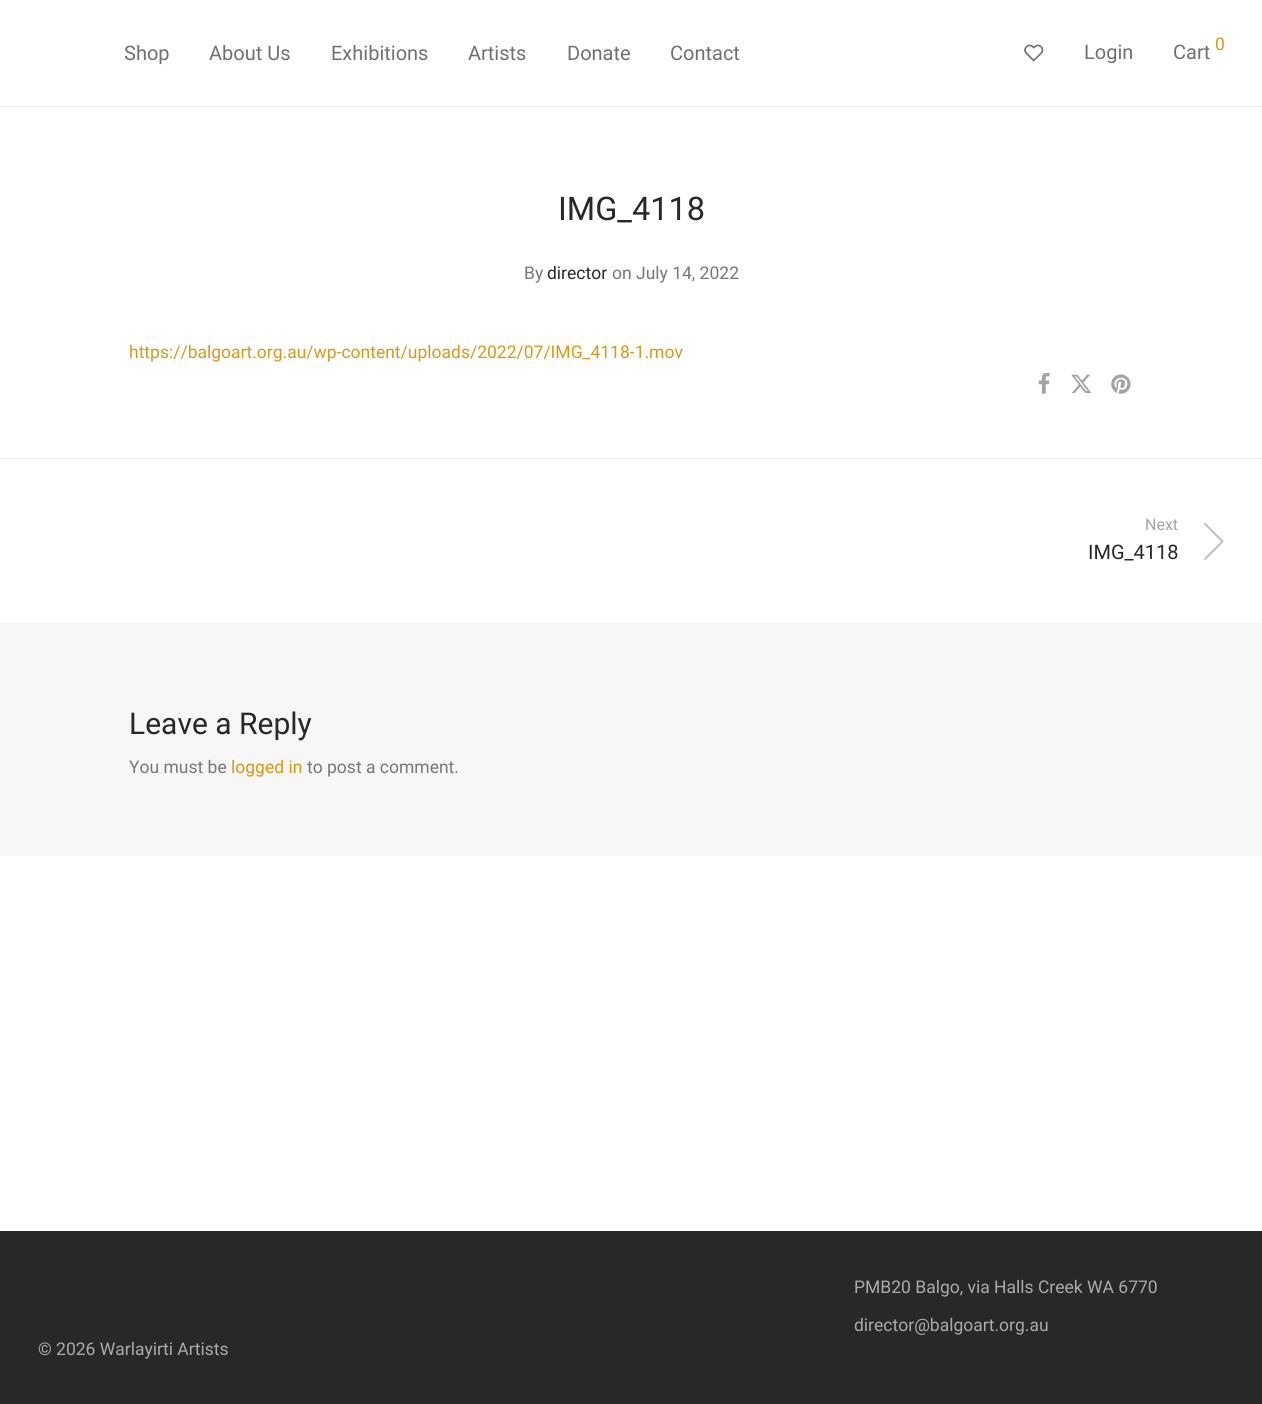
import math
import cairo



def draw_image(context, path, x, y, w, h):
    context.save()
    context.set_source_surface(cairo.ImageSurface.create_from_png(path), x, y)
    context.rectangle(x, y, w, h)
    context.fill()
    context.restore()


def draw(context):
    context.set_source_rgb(1, 1, 1)
    context.paint()
    context.set_source_rgb(238 / 255, 238 / 255, 238 / 255)
    context.rectangle(0, 106, 1262, 1)
    context.fill()
    draw_image(context, "images/1.png", 1024, 44, 20, 18)
    draw_image(context, "images/2.png", 1038, 372, 12, 22)
    draw_image(context, "images/3.png", 1071, 374, 21, 20)
    draw_image(context, "images/4.png", 1111, 374, 20, 20)
    context.rectangle(0, 458, 1262, 1)
    context.fill()
    draw_image(context, "images/5.png", 1204, 522, 20, 38)
    context.set_source_rgb(247 / 255, 247 / 255, 247 / 255)
    context.rectangle(0, 623, 1262, 233)
    context.fill()
    context.set_source_rgb(40 / 255, 40 / 255, 40 / 255)
    context.rectangle(0, 1231, 1262, 173)
    context.fill()
    context.select_font_face("Roboto")
    context.set_font_size(20)
    context.set_source_rgb(112 / 255, 112 / 255, 112 / 255)
    context.move_to(124, 60)
    context.show_text("Shop")
    context.move_to(209, 60)
    context.show_text("About Us")
    context.move_to(331, 60)
    context.show_text("Exhibitions")
    context.move_to(468, 60)
    context.show_text("Artists")
    context.move_to(567, 60)
    context.show_text("Donate")
    context.move_to(670, 60)
    context.show_text("Contact")
    context.move_to(1084, 59)
    context.show_text("Login")
    context.move_to(1173, 59)
    context.show_text("Cart")
    context.set_font_size(17.5)
    context.set_source_rgb(220 / 255, 152 / 255, 20 / 255)
    context.move_to(1215, 50)
    context.show_text("0")
    context.set_font_size(32.5)
    context.set_source_rgb(40 / 255, 40 / 255, 40 / 255)
    context.move_to(558, 220)
    context.show_text("IMG_4118")
    context.set_font_size(17.5)
    context.set_source_rgb(119 / 255, 119 / 255, 119 / 255)
    context.move_to(524, 279)
    context.show_text("By")
    context.set_source_rgb(40 / 255, 40 / 255, 40 / 255)
    context.move_to(547, 279)
    context.show_text("director")
    context.set_source_rgb(119 / 255, 119 / 255, 119 / 255)
    context.move_to(612, 279)
    context.show_text("on July 14, 2022")
    context.set_source_rgb(220 / 255, 152 / 255, 20 / 255)
    context.move_to(129, 358)
    context.show_text("https://balgoart.org.au/wp-content/uploads/2022/07/IMG_4118-1.mov")
    context.set_font_size(16)
    context.set_source_rgb(163 / 255, 163 / 255, 163 / 255)
    context.move_to(1145, 530)
    context.show_text("Next")
    context.set_font_size(20)
    context.set_source_rgb(40 / 255, 40 / 255, 40 / 255)
    context.move_to(1088, 559)
    context.show_text("IMG_4118")
    context.set_font_size(30)
    context.move_to(129, 734)
    context.show_text("Leave a Reply")
    context.set_font_size(17.5)
    context.set_source_rgb(119 / 255, 119 / 255, 119 / 255)
    context.move_to(129, 773)
    context.show_text("You must be")
    context.set_source_rgb(220 / 255, 152 / 255, 20 / 255)
    context.move_to(231, 773)
    context.show_text("logged in")
    context.set_source_rgb(119 / 255, 119 / 255, 119 / 255)
    context.move_to(307, 773)
    context.show_text("to post a comment.")
    context.set_source_rgb(170 / 255, 170 / 255, 170 / 255)
    context.move_to(854, 1293)
    context.show_text("PMB20 Balgo, via Halls Creek WA 6770")
    context.move_to(854, 1331)
    context.show_text("director@balgoart.org.au")
    context.move_to(38, 1355)
    context.show_text("© 2026 Warlayirti Artists")


surface = cairo.ImageSurface(cairo.Format.RGB24, 1262, 1404)
context = cairo.Context(surface)
options = cairo.FontOptions()
options.set_hint_metrics(cairo.HintMetrics.OFF)
options.set_hint_style(cairo.HintStyle.NONE)
context.set_font_options(options)
context.set_miter_limit(4)
draw(context)
surface.write_to_png("out.png")
